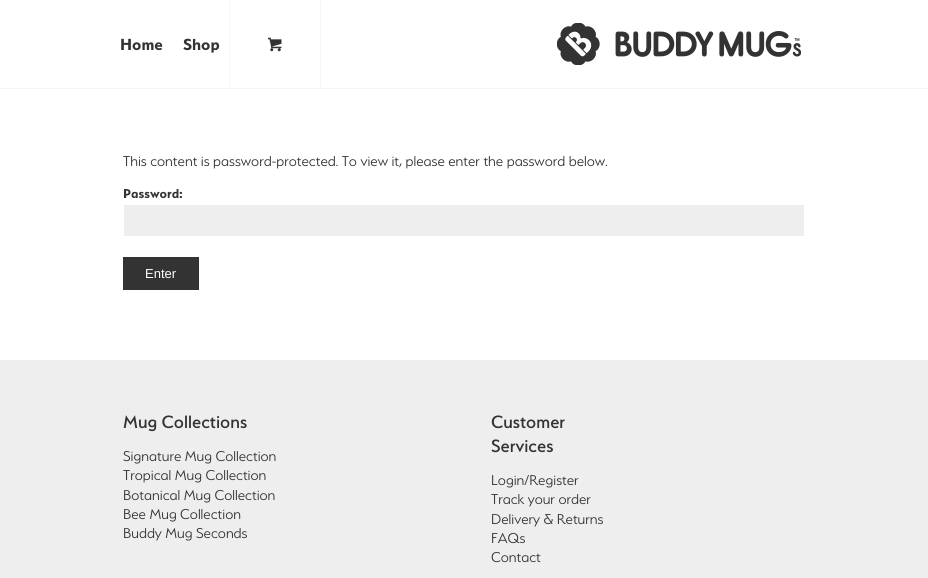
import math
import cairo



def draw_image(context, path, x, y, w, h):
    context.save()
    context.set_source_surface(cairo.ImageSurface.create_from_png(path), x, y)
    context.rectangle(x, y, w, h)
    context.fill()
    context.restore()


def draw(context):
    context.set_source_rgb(1, 1, 1)
    context.paint()
    context.set_source_rgb(245 / 255, 245 / 255, 245 / 255)
    context.rectangle(0, 88, 928, 1)
    context.fill()
    context.rectangle(320, 0, 1, 88)
    context.fill()
    context.rectangle(229, 0, 1, 88)
    context.fill()
    draw_image(context, "images/1.png", 268, 37, 14, 15)
    draw_image(context, "images/2.png", 557, 23, 244, 42)
    context.set_source_rgb(238 / 255, 238 / 255, 238 / 255)
    context.rectangle(124, 205, 680, 31)
    context.fill()
    context.set_source_rgb(51 / 255, 51 / 255, 51 / 255)
    context.rectangle(123, 257, 76, 33)
    context.fill()
    context.set_source_rgb(238 / 255, 238 / 255, 238 / 255)
    context.rectangle(0, 360, 928, 218)
    context.fill()
    context.select_font_face("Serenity", cairo.FontSlant.NORMAL, cairo.FontWeight.BOLD)
    context.set_font_size(18)
    context.set_source_rgb(51 / 255, 51 / 255, 51 / 255)
    context.move_to(120, 50)
    context.show_text("Home")
    context.move_to(183, 50)
    context.show_text("Shop")
    context.select_font_face("Serenity Light")
    context.set_font_size(16)
    context.move_to(123, 166)
    context.show_text("This content is password-protected. To view it, please enter the password below.")
    context.select_font_face("Serenity", cairo.FontSlant.NORMAL, cairo.FontWeight.BOLD)
    context.set_font_size(14.5)
    context.move_to(123, 198)
    context.show_text("Password:")
    context.select_font_face("Liberation Sans")
    context.set_font_size(13)
    context.set_source_rgb(1, 1, 1)
    context.move_to(145, 278)
    context.show_text("Enter")
    context.select_font_face("Serenity Medium")
    context.set_font_size(20)
    context.set_source_rgb(51 / 255, 51 / 255, 51 / 255)
    context.move_to(123, 428)
    context.show_text("Mug Collections")
    context.select_font_face("Serenity Light")
    context.set_font_size(16)
    context.move_to(123, 461)
    context.show_text("Signature Mug Collection")
    context.move_to(123, 480)
    context.show_text("Tropical Mug Collection")
    context.move_to(123, 500)
    context.show_text("Botanical Mug Collection")
    context.move_to(123, 519)
    context.show_text("Bee Mug Collection")
    context.move_to(123, 538)
    context.show_text("Buddy Mug Seconds")
    context.select_font_face("Serenity Medium")
    context.set_font_size(20)
    context.move_to(491, 428)
    context.show_text("Customer")
    context.move_to(491, 452)
    context.show_text("Services")
    context.select_font_face("Serenity Light")
    context.set_font_size(16)
    context.move_to(491, 485)
    context.show_text("Login/Register")
    context.move_to(491, 504)
    context.show_text("Track your order")
    context.move_to(491, 524)
    context.show_text("Delivery & Returns")
    context.move_to(491, 543)
    context.show_text("FAQs")
    context.move_to(491, 562)
    context.show_text("Contact")


surface = cairo.ImageSurface(cairo.Format.RGB24, 928, 578)
context = cairo.Context(surface)
options = cairo.FontOptions()
options.set_hint_metrics(cairo.HintMetrics.OFF)
options.set_hint_style(cairo.HintStyle.NONE)
context.set_font_options(options)
context.set_miter_limit(4)
draw(context)
surface.write_to_png("out.png")
